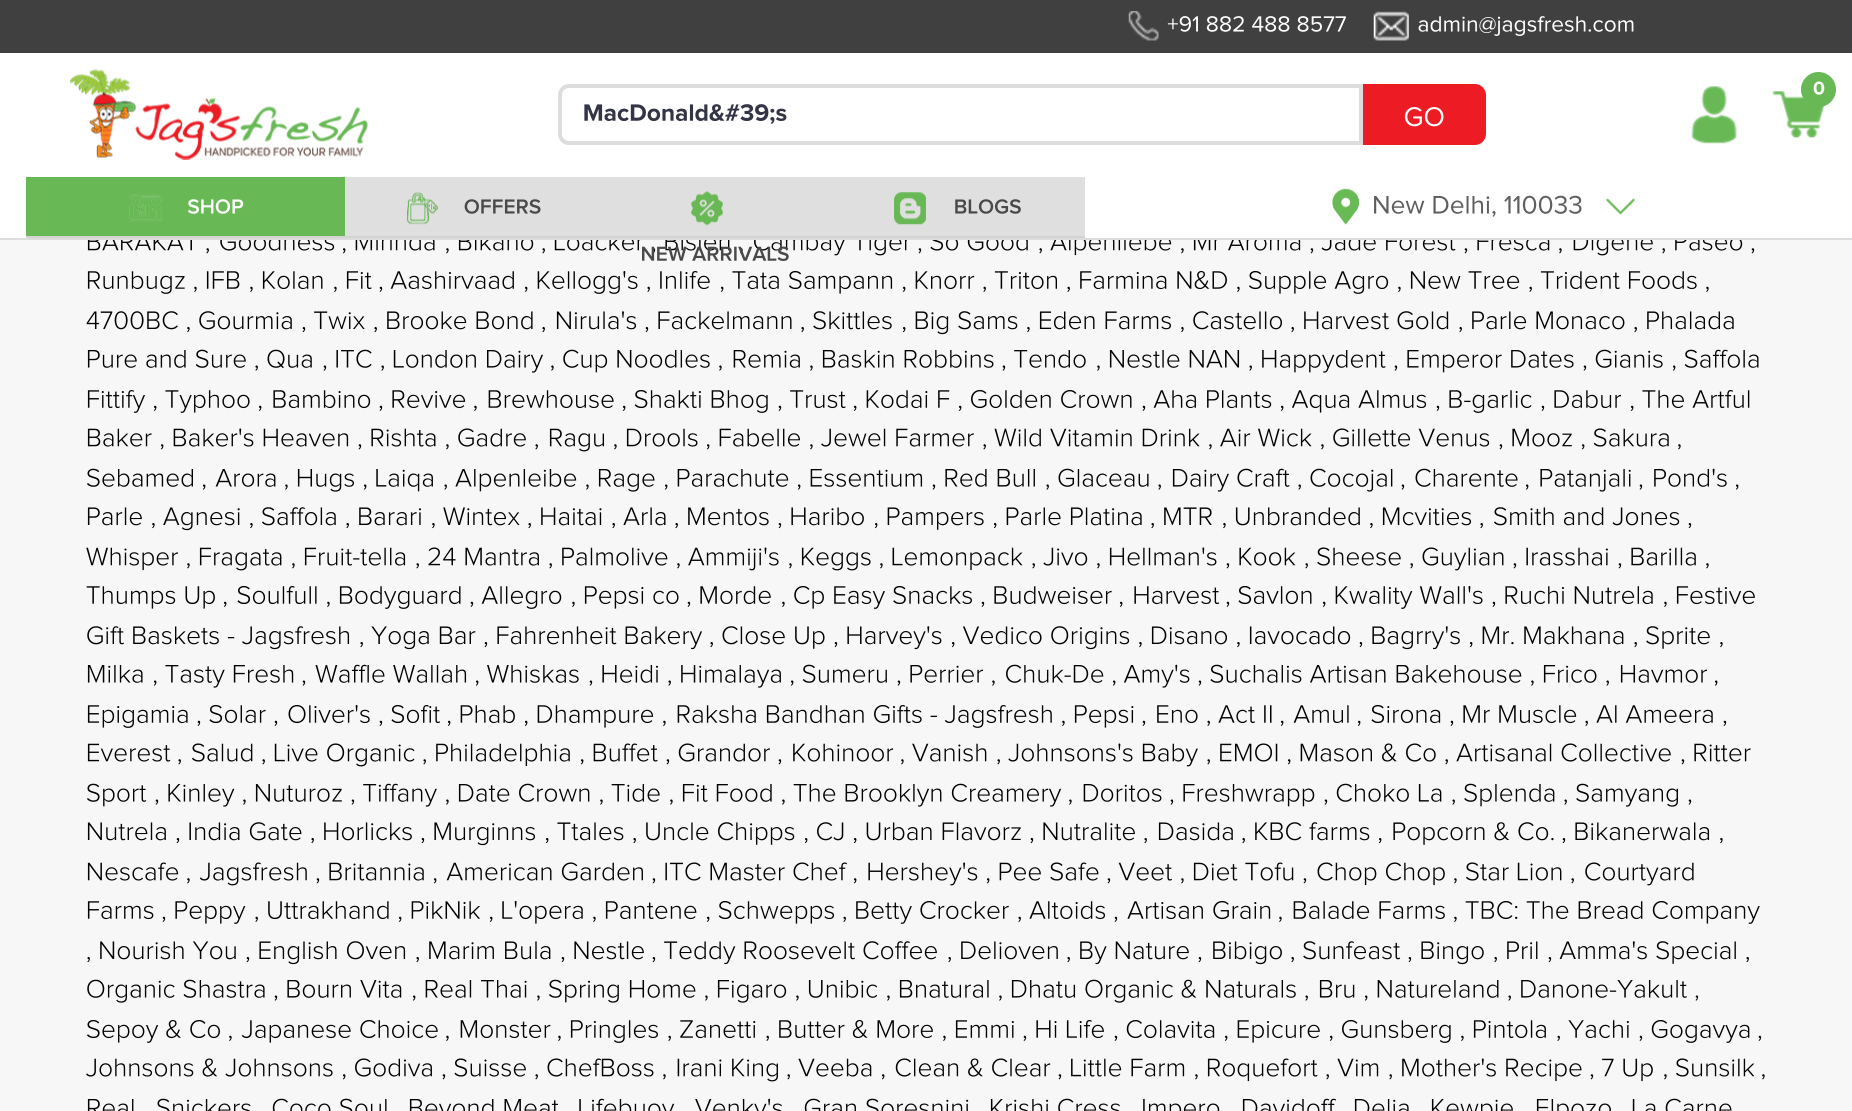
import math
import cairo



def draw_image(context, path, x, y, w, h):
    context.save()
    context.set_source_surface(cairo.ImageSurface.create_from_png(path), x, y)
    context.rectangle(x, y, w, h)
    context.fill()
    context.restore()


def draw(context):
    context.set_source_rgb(247 / 255, 247 / 255, 247 / 255)
    context.paint()
    context.set_source_rgb(1, 1, 1)
    context.rectangle(0, 53, 1852, 185)
    context.fill()
    context.set_source_rgb(221 / 255, 221 / 255, 221 / 255)
    context.rectangle(0, 238, 1852, 2)
    context.fill()
    context.set_source_rgb(64 / 255, 64 / 255, 64 / 255)
    context.rectangle(0, 0, 1852, 53)
    context.fill()
    draw_image(context, "images/1.png", 1128, 11, 31, 30)
    draw_image(context, "images/2.png", 1167, 16, 179, 16)
    draw_image(context, "images/3.png", 1373, 11, 36, 30)
    draw_image(context, "images/4.png", 1418, 16, 216, 20)
    draw_image(context, "images/5.png", 70, 69, 298, 91)
    context.new_path()
    context.move_to(569, 86)
    context.line_to(1361, 86)
    context.line_to(1361, 143)
    context.line_to(569, 143)
    context.curve_to(564, 143, 560, 139, 560, 134)
    context.line_to(560, 95)
    context.curve_to(560, 90, 564, 86, 569, 86)
    context.close_path()
    context.set_source_rgb(221 / 255, 221 / 255, 221 / 255)
    context.set_line_width(4)
    context.stroke()
    draw_image(context, "images/6.png", 584, 104, 203, 20)
    context.set_source_rgb(237 / 255, 28 / 255, 36 / 255)
    context.new_path()
    context.move_to(1363, 84)
    context.line_to(1475, 84)
    context.curve_to(1481, 84, 1486, 89, 1486, 95)
    context.line_to(1486, 134)
    context.curve_to(1486, 140, 1481, 145, 1475, 145)
    context.line_to(1363, 145)
    context.close_path()
    context.fill()
    draw_image(context, "images/7.png", 1404, 107, 40, 20)
    draw_image(context, "images/8.png", 1691, 86, 46, 58)
    draw_image(context, "images/10.png", 1772, 91, 53, 48)
    context.set_source_rgb(104 / 255, 185 / 255, 86 / 255)
    context.arc(1818.5, 89.5, 17.5, 0, 2 * math.pi)
    context.fill()
    draw_image(context, "images/9.png", 1813, 81, 12, 14)
    context.set_source_rgb(211 / 255, 211 / 255, 211 / 255)
    context.rectangle(26, 236, 1059, 2)
    context.fill()
    context.set_source_rgb(104 / 255, 185 / 255, 86 / 255)
    context.rectangle(26, 177, 319, 59)
    context.fill()
    draw_image(context, "images/11.png", 128, 194, 34, 28)
    draw_image(context, "images/12.png", 187, 199, 57, 15)
    context.set_source_rgb(223 / 255, 223 / 255, 223 / 255)
    context.rectangle(345, 177, 740, 59)
    context.fill()
    draw_image(context, "images/13.png", 407, 192, 31, 33)
    draw_image(context, "images/14.png", 464, 199, 77, 15)
    draw_image(context, "images/15.png", 691, 191, 32, 35)
    draw_image(context, "images/30.png", 654, 248, 2, 5)
    draw_image(context, "images/31.png", 665, 240, 65, 11)
    draw_image(context, "images/27.png", 740, 248, 3, 6)
    draw_image(context, "images/32.png", 754, 240, 153, 16)
    draw_image(context, "images/16.png", 642, 246, 147, 15)
    draw_image(context, "images/17.png", 894, 192, 32, 33)
    draw_image(context, "images/18.png", 955, 199, 66, 15)
    draw_image(context, "images/19.png", 1332, 188, 28, 37)
    draw_image(context, "images/20.png", 1374, 195, 208, 22)
    draw_image(context, "images/21.png", 1606, 198, 29, 17)
    draw_image(context, "images/22.png", 87, 240, 105, 11)
    draw_image(context, "images/23.png", 206, 248, 3, 6)
    draw_image(context, "images/24.png", 220, 240, 115, 11)
    draw_image(context, "images/25.png", 342, 248, 4, 6)
    draw_image(context, "images/26.png", 355, 240, 80, 11)
    draw_image(context, "images/27.png", 446, 248, 3, 6)
    draw_image(context, "images/28.png", 458, 240, 76, 11)
    draw_image(context, "images/23.png", 542, 248, 3, 6)
    draw_image(context, "images/29.png", 554, 240, 86, 11)
    draw_image(context, "images/33.png", 918, 248, 4, 6)
    draw_image(context, "images/34.png", 930, 240, 98, 11)
    draw_image(context, "images/23.png", 1039, 248, 3, 6)
    draw_image(context, "images/35.png", 1050, 240, 122, 16)
    draw_image(context, "images/27.png", 1181, 248, 3, 6)
    draw_image(context, "images/36.png", 1193, 240, 108, 11)
    draw_image(context, "images/33.png", 1310, 248, 4, 6)
    draw_image(context, "images/37.png", 1321, 240, 135, 11)
    draw_image(context, "images/33.png", 1464, 248, 4, 6)
    draw_image(context, "images/38.png", 1477, 240, 73, 11)
    draw_image(context, "images/27.png", 1559, 248, 3, 6)
    draw_image(context, "images/39.png", 1573, 240, 80, 16)
    draw_image(context, "images/23.png", 1662, 248, 3, 6)
    draw_image(context, "images/40.png", 1675, 240, 68, 11)
    draw_image(context, "images/33.png", 1751, 248, 4, 6)
    draw_image(context, "images/41.png", 87, 271, 98, 23)
    draw_image(context, "images/42.png", 194, 286, 3, 6)
    draw_image(context, "images/43.png", 206, 271, 34, 18)
    draw_image(context, "images/42.png", 250, 286, 3, 6)
    draw_image(context, "images/44.png", 262, 271, 61, 19)
    draw_image(context, "images/42.png", 334, 286, 3, 6)
    draw_image(context, "images/45.png", 346, 271, 26, 19)
    draw_image(context, "images/46.png", 379, 286, 4, 6)
    draw_image(context, "images/47.png", 390, 271, 124, 19)
    draw_image(context, "images/48.png", 524, 286, 4, 6)
    draw_image(context, "images/49.png", 537, 271, 101, 23)
    draw_image(context, "images/50.png", 647, 286, 3, 6)
    draw_image(context, "images/51.png", 660, 271, 50, 19)
    draw_image(context, "images/48.png", 720, 286, 4, 6)
    draw_image(context, "images/52.png", 732, 270, 161, 24)
    draw_image(context, "images/48.png", 902, 286, 4, 6)
    draw_image(context, "images/53.png", 915, 271, 60, 19)
    draw_image(context, "images/50.png", 983, 286, 3, 6)
    draw_image(context, "images/54.png", 994, 271, 63, 19)
    draw_image(context, "images/50.png", 1067, 286, 3, 6)
    draw_image(context, "images/55.png", 1080, 271, 147, 19)
    draw_image(context, "images/42.png", 1237, 286, 3, 6)
    draw_image(context, "images/56.png", 1249, 270, 140, 24)
    draw_image(context, "images/42.png", 1398, 286, 3, 6)
    draw_image(context, "images/57.png", 1410, 271, 110, 19)
    draw_image(context, "images/50.png", 1529, 286, 3, 6)
    draw_image(context, "images/58.png", 1540, 271, 157, 19)
    draw_image(context, "images/42.png", 1706, 286, 3, 6)
    draw_image(context, "images/59.png", 86, 311, 92, 19)
    draw_image(context, "images/60.png", 187, 327, 3, 6)
    draw_image(context, "images/61.png", 199, 311, 93, 19)
    draw_image(context, "images/62.png", 302, 327, 4, 6)
    draw_image(context, "images/63.png", 314, 311, 51, 18)
    draw_image(context, "images/64.png", 374, 327, 3, 6)
    draw_image(context, "images/65.png", 387, 311, 146, 19)
    draw_image(context, "images/64.png", 542, 327, 3, 6)
    draw_image(context, "images/66.png", 556, 311, 81, 19)
    draw_image(context, "images/62.png", 645, 327, 4, 6)
    draw_image(context, "images/67.png", 658, 311, 134, 19)
    draw_image(context, "images/64.png", 801, 327, 3, 6)
    draw_image(context, "images/68.png", 813, 311, 79, 19)
    draw_image(context, "images/69.png", 902, 327, 4, 6)
    draw_image(context, "images/70.png", 915, 311, 103, 24)
    draw_image(context, "images/60.png", 1027, 327, 3, 6)
    draw_image(context, "images/71.png", 1039, 311, 132, 19)
    draw_image(context, "images/60.png", 1181, 327, 3, 6)
    draw_image(context, "images/72.png", 1193, 311, 89, 19)
    draw_image(context, "images/64.png", 1291, 327, 3, 6)
    draw_image(context, "images/73.png", 1304, 311, 145, 19)
    draw_image(context, "images/64.png", 1459, 327, 3, 6)
    draw_image(context, "images/74.png", 1472, 311, 153, 19)
    draw_image(context, "images/64.png", 1634, 327, 3, 6)
    draw_image(context, "images/75.png", 1647, 311, 87, 19)
    draw_image(context, "images/76.png", 87, 349, 159, 19)
    draw_image(context, "images/77.png", 255, 365, 3, 6)
    draw_image(context, "images/78.png", 267, 349, 45, 20)
    draw_image(context, "images/79.png", 323, 365, 4, 6)
    draw_image(context, "images/80.png", 336, 349, 36, 19)
    draw_image(context, "images/77.png", 381, 365, 3, 6)
    draw_image(context, "images/81.png", 393, 350, 150, 23)
    draw_image(context, "images/82.png", 551, 365, 3, 6)
    draw_image(context, "images/83.png", 563, 349, 147, 24)
    draw_image(context, "images/82.png", 719, 365, 3, 6)
    draw_image(context, "images/84.png", 733, 350, 67, 18)
    draw_image(context, "images/82.png", 810, 365, 3, 6)
    draw_image(context, "images/85.png", 822, 350, 172, 18)
    draw_image(context, "images/79.png", 1002, 365, 4, 6)
    draw_image(context, "images/86.png", 1014, 350, 72, 18)
    draw_image(context, "images/82.png", 1097, 365, 3, 6)
    draw_image(context, "images/87.png", 1109, 350, 131, 18)
    draw_image(context, "images/77.png", 1249, 365, 3, 6)
    draw_image(context, "images/88.png", 1262, 350, 124, 23)
    draw_image(context, "images/79.png", 1394, 365, 4, 6)
    draw_image(context, "images/89.png", 1407, 350, 167, 23)
    draw_image(context, "images/79.png", 1583, 365, 4, 6)
    draw_image(context, "images/90.png", 1595, 349, 68, 19)
    draw_image(context, "images/91.png", 1672, 365, 4, 6)
    draw_image(context, "images/92.png", 1684, 349, 75, 19)
    draw_image(context, "images/93.png", 87, 390, 58, 23)
    draw_image(context, "images/48.png", 153, 405, 4, 6)
    draw_image(context, "images/94.png", 165, 390, 85, 23)
    draw_image(context, "images/48.png", 258, 405, 4, 6)
    draw_image(context, "images/95.png", 273, 390, 98, 19)
    draw_image(context, "images/46.png", 379, 405, 4, 6)
    draw_image(context, "images/96.png", 392, 390, 74, 19)
    draw_image(context, "images/42.png", 474, 405, 3, 6)
    draw_image(context, "images/97.png", 488, 390, 126, 19)
    draw_image(context, "images/48.png", 622, 405, 4, 6)
    draw_image(context, "images/98.png", 634, 390, 134, 23)
    draw_image(context, "images/46.png", 778, 405, 4, 6)
    draw_image(context, "images/99.png", 790, 390, 56, 19)
    draw_image(context, "images/48.png", 853, 405, 4, 6)
    draw_image(context, "images/100.png", 866, 390, 84, 19)
    draw_image(context, "images/48.png", 958, 405, 4, 6)
    draw_image(context, "images/101.png", 971, 390, 161, 19)
    draw_image(context, "images/46.png", 1142, 405, 4, 6)
    draw_image(context, "images/102.png", 1153, 390, 119, 19)
    draw_image(context, "images/48.png", 1280, 405, 4, 6)
    draw_image(context, "images/103.png", 1292, 390, 135, 23)
    draw_image(context, "images/46.png", 1436, 405, 4, 6)
    draw_image(context, "images/104.png", 1449, 390, 83, 23)
    draw_image(context, "images/46.png", 1541, 405, 4, 6)
    draw_image(context, "images/105.png", 1554, 390, 68, 19)
    draw_image(context, "images/48.png", 1630, 405, 4, 6)
    draw_image(context, "images/106.png", 1642, 390, 108, 19)
    draw_image(context, "images/107.png", 87, 428, 65, 19)
    draw_image(context, "images/25.png", 160, 444, 4, 6)
    draw_image(context, "images/108.png", 173, 428, 176, 19)
    draw_image(context, "images/33.png", 358, 444, 4, 6)
    draw_image(context, "images/109.png", 371, 428, 65, 19)
    draw_image(context, "images/27.png", 446, 444, 3, 6)
    draw_image(context, "images/110.png", 458, 428, 68, 19)
    draw_image(context, "images/23.png", 535, 444, 3, 6)
    draw_image(context, "images/111.png", 549, 428, 56, 24)
    draw_image(context, "images/27.png", 614, 444, 3, 6)
    draw_image(context, "images/112.png", 626, 428, 72, 19)
    draw_image(context, "images/25.png", 706, 444, 4, 6)
    draw_image(context, "images/113.png", 719, 428, 81, 19)
    draw_image(context, "images/27.png", 810, 444, 3, 6)
    draw_image(context, "images/114.png", 821, 428, 153, 19)
    draw_image(context, "images/23.png", 983, 444, 3, 6)
    draw_image(context, "images/115.png", 994, 428, 206, 19)
    draw_image(context, "images/27.png", 1209, 444, 3, 6)
    draw_image(context, "images/116.png", 1220, 428, 92, 19)
    draw_image(context, "images/27.png", 1321, 444, 3, 6)
    draw_image(context, "images/117.png", 1333, 428, 157, 19)
    draw_image(context, "images/33.png", 1499, 444, 4, 6)
    draw_image(context, "images/118.png", 1512, 428, 60, 19)
    draw_image(context, "images/25.png", 1581, 444, 4, 6)
    draw_image(context, "images/119.png", 1593, 428, 76, 19)
    draw_image(context, "images/27.png", 1678, 444, 3, 6)
    draw_image(context, "images/120.png", 87, 468, 106, 19)
    draw_image(context, "images/91.png", 202, 484, 4, 6)
    draw_image(context, "images/121.png", 215, 469, 61, 18)
    draw_image(context, "images/82.png", 285, 484, 3, 6)
    draw_image(context, "images/122.png", 297, 469, 57, 23)
    draw_image(context, "images/91.png", 363, 484, 4, 6)
    draw_image(context, "images/123.png", 376, 469, 57, 23)
    draw_image(context, "images/77.png", 444, 484, 3, 6)
    draw_image(context, "images/124.png", 455, 469, 122, 23)
    draw_image(context, "images/82.png", 586, 484, 3, 6)
    draw_image(context, "images/125.png", 598, 469, 57, 23)
    draw_image(context, "images/91.png", 664, 484, 4, 6)
    draw_image(context, "images/126.png", 677, 469, 112, 18)
    draw_image(context, "images/91.png", 797, 484, 4, 6)
    draw_image(context, "images/127.png", 810, 469, 113, 18)
    draw_image(context, "images/79.png", 932, 484, 4, 6)
    draw_image(context, "images/128.png", 945, 469, 90, 18)
    draw_image(context, "images/77.png", 1046, 484, 3, 6)
    draw_image(context, "images/129.png", 1058, 468, 91, 19)
    draw_image(context, "images/77.png", 1158, 484, 3, 6)
    draw_image(context, "images/130.png", 1172, 468, 118, 24)
    draw_image(context, "images/77.png", 1298, 484, 3, 6)
    draw_image(context, "images/131.png", 1310, 468, 83, 24)
    draw_image(context, "images/79.png", 1401, 484, 4, 6)
    draw_image(context, "images/132.png", 1415, 468, 103, 19)
    draw_image(context, "images/91.png", 1525, 484, 4, 6)
    draw_image(context, "images/133.png", 1540, 469, 91, 23)
    draw_image(context, "images/79.png", 1639, 484, 4, 6)
    draw_image(context, "images/134.png", 1654, 468, 73, 19)
    draw_image(context, "images/91.png", 1735, 484, 4, 6)
    draw_image(context, "images/135.png", 87, 507, 55, 19)
    draw_image(context, "images/60.png", 152, 523, 3, 6)
    draw_image(context, "images/136.png", 163, 507, 77, 24)
    draw_image(context, "images/60.png", 250, 523, 3, 6)
    draw_image(context, "images/137.png", 262, 507, 74, 19)
    draw_image(context, "images/64.png", 346, 523, 3, 6)
    draw_image(context, "images/138.png", 359, 507, 62, 19)
    draw_image(context, "images/60.png", 432, 523, 3, 6)
    draw_image(context, "images/139.png", 443, 507, 77, 19)
    draw_image(context, "images/64.png", 528, 523, 3, 6)
    draw_image(context, "images/140.png", 541, 507, 61, 19)
    draw_image(context, "images/64.png", 612, 523, 3, 6)
    draw_image(context, "images/141.png", 623, 507, 43, 19)
    draw_image(context, "images/64.png", 675, 523, 3, 6)
    draw_image(context, "images/142.png", 688, 507, 81, 19)
    draw_image(context, "images/62.png", 778, 523, 4, 6)
    draw_image(context, "images/143.png", 791, 507, 73, 19)
    draw_image(context, "images/69.png", 874, 523, 4, 6)
    draw_image(context, "images/144.png", 887, 507, 97, 23)
    draw_image(context, "images/69.png", 993, 523, 4, 6)
    draw_image(context, "images/145.png", 1006, 507, 136, 19)
    draw_image(context, "images/64.png", 1151, 523, 3, 6)
    draw_image(context, "images/146.png", 1164, 507, 48, 18)
    draw_image(context, "images/60.png", 1223, 523, 3, 6)
    draw_image(context, "images/147.png", 1235, 507, 125, 19)
    draw_image(context, "images/60.png", 1370, 523, 3, 6)
    draw_image(context, "images/148.png", 1382, 507, 90, 19)
    draw_image(context, "images/64.png", 1480, 523, 3, 6)
    draw_image(context, "images/149.png", 1494, 507, 186, 19)
    draw_image(context, "images/62.png", 1688, 523, 4, 6)
    draw_image(context, "images/150.png", 86, 547, 92, 24)
    draw_image(context, "images/27.png", 187, 563, 3, 6)
    draw_image(context, "images/151.png", 199, 547, 83, 24)
    draw_image(context, "images/27.png", 292, 563, 3, 6)
    draw_image(context, "images/152.png", 304, 547, 102, 19)
    draw_image(context, "images/23.png", 416, 563, 3, 6)
    draw_image(context, "images/153.png", 428, 547, 111, 19)
    draw_image(context, "images/23.png", 549, 563, 3, 6)
    draw_image(context, "images/154.png", 562, 547, 106, 19)
    draw_image(context, "images/27.png", 677, 563, 3, 6)
    draw_image(context, "images/155.png", 688, 547, 91, 24)
    draw_image(context, "images/27.png", 789, 563, 3, 6)
    draw_image(context, "images/156.png", 801, 547, 70, 24)
    draw_image(context, "images/27.png", 880, 563, 3, 6)
    draw_image(context, "images/157.png", 892, 547, 131, 24)
    draw_image(context, "images/23.png", 1032, 563, 3, 6)
    draw_image(context, "images/158.png", 1043, 547, 45, 19)
    draw_image(context, "images/27.png", 1097, 563, 3, 6)
    draw_image(context, "images/159.png", 1109, 547, 108, 19)
    draw_image(context, "images/33.png", 1226, 563, 4, 6)
    draw_image(context, "images/160.png", 1239, 547, 57, 19)
    draw_image(context, "images/23.png", 1305, 563, 3, 6)
    draw_image(context, "images/161.png", 1317, 547, 84, 19)
    draw_image(context, "images/23.png", 1410, 563, 3, 6)
    draw_image(context, "images/162.png", 1422, 547, 82, 24)
    draw_image(context, "images/33.png", 1513, 563, 4, 6)
    draw_image(context, "images/163.png", 1526, 547, 82, 19)
    draw_image(context, "images/33.png", 1618, 563, 4, 6)
    draw_image(context, "images/164.png", 1631, 547, 65, 19)
    draw_image(context, "images/27.png", 1706, 563, 3, 6)
    draw_image(context, "images/165.png", 86, 586, 129, 23)
    draw_image(context, "images/48.png", 223, 601, 4, 6)
    draw_image(context, "images/166.png", 237, 585, 80, 20)
    draw_image(context, "images/42.png", 327, 601, 3, 6)
    draw_image(context, "images/167.png", 339, 586, 122, 23)
    draw_image(context, "images/46.png", 470, 601, 4, 6)
    draw_image(context, "images/168.png", 481, 586, 81, 23)
    draw_image(context, "images/42.png", 572, 601, 3, 6)
    draw_image(context, "images/169.png", 584, 586, 95, 23)
    draw_image(context, "images/46.png", 687, 601, 4, 6)
    draw_image(context, "images/170.png", 700, 586, 71, 19)
    draw_image(context, "images/42.png", 782, 601, 3, 6)
    draw_image(context, "images/171.png", 794, 585, 178, 24)
    draw_image(context, "images/46.png", 981, 601, 4, 6)
    draw_image(context, "images/172.png", 994, 586, 118, 19)
    draw_image(context, "images/48.png", 1119, 601, 4, 6)
    draw_image(context, "images/173.png", 1134, 586, 86, 19)
    draw_image(context, "images/46.png", 1226, 601, 4, 6)
    draw_image(context, "images/174.png", 1238, 585, 74, 20)
    draw_image(context, "images/48.png", 1322, 601, 4, 6)
    draw_image(context, "images/175.png", 1335, 586, 148, 23)
    draw_image(context, "images/46.png", 1492, 601, 4, 6)
    draw_image(context, "images/176.png", 1505, 586, 148, 19)
    draw_image(context, "images/42.png", 1664, 601, 3, 6)
    draw_image(context, "images/177.png", 1676, 586, 79, 19)
    draw_image(context, "images/178.png", 87, 626, 263, 24)
    draw_image(context, "images/64.png", 360, 642, 3, 6)
    draw_image(context, "images/179.png", 371, 626, 105, 24)
    draw_image(context, "images/62.png", 484, 642, 4, 6)
    draw_image(context, "images/180.png", 497, 626, 205, 24)
    draw_image(context, "images/64.png", 710, 642, 3, 6)
    draw_image(context, "images/181.png", 722, 626, 103, 23)
    draw_image(context, "images/62.png", 834, 642, 4, 6)
    draw_image(context, "images/182.png", 847, 626, 95, 24)
    draw_image(context, "images/69.png", 951, 642, 4, 6)
    draw_image(context, "images/183.png", 963, 626, 167, 24)
    draw_image(context, "images/60.png", 1139, 642, 3, 6)
    draw_image(context, "images/184.png", 1151, 626, 76, 19)
    draw_image(context, "images/60.png", 1237, 642, 3, 6)
    draw_image(context, "images/185.png", 1249, 626, 102, 19)
    draw_image(context, "images/62.png", 1359, 642, 4, 6)
    draw_image(context, "images/186.png", 1372, 626, 88, 24)
    draw_image(context, "images/69.png", 1469, 642, 4, 6)
    draw_image(context, "images/187.png", 1482, 626, 142, 19)
    draw_image(context, "images/64.png", 1634, 642, 3, 6)
    draw_image(context, "images/188.png", 1646, 626, 64, 23)
    draw_image(context, "images/60.png", 1720, 642, 3, 6)
    draw_image(context, "images/189.png", 87, 665, 56, 18)
    draw_image(context, "images/91.png", 153, 680, 4, 6)
    draw_image(context, "images/190.png", 165, 665, 129, 23)
    draw_image(context, "images/79.png", 302, 680, 4, 6)
    draw_image(context, "images/191.png", 315, 664, 152, 19)
    draw_image(context, "images/91.png", 475, 680, 4, 6)
    draw_image(context, "images/192.png", 487, 665, 92, 18)
    draw_image(context, "images/79.png", 589, 680, 4, 6)
    draw_image(context, "images/193.png", 602, 665, 56, 18)
    draw_image(context, "images/77.png", 668, 680, 3, 6)
    draw_image(context, "images/194.png", 681, 665, 100, 23)
    draw_image(context, "images/91.png", 790, 680, 4, 6)
    draw_image(context, "images/195.png", 802, 664, 85, 19)
    draw_image(context, "images/79.png", 897, 680, 4, 6)
    draw_image(context, "images/196.png", 910, 665, 74, 18)
    draw_image(context, "images/82.png", 992, 680, 3, 6)
    draw_image(context, "images/197.png", 1006, 664, 98, 19)
    draw_image(context, "images/91.png", 1112, 680, 4, 6)
    draw_image(context, "images/198.png", 1124, 664, 66, 24)
    draw_image(context, "images/79.png", 1198, 680, 4, 6)
    draw_image(context, "images/199.png", 1210, 664, 312, 19)
    draw_image(context, "images/82.png", 1531, 680, 3, 6)
    draw_image(context, "images/200.png", 1543, 665, 54, 18)
    draw_image(context, "images/77.png", 1606, 680, 3, 6)
    draw_image(context, "images/201.png", 1620, 665, 87, 18)
    draw_image(context, "images/91.png", 1714, 680, 4, 6)
    draw_image(context, "images/202.png", 87, 705, 101, 23)
    draw_image(context, "images/46.png", 197, 720, 4, 6)
    draw_image(context, "images/203.png", 209, 704, 57, 20)
    draw_image(context, "images/46.png", 274, 720, 4, 6)
    draw_image(context, "images/204.png", 288, 705, 82, 19)
    draw_image(context, "images/46.png", 379, 720, 4, 6)
    draw_image(context, "images/205.png", 391, 704, 49, 20)
    draw_image(context, "images/48.png", 447, 720, 4, 6)
    draw_image(context, "images/206.png", 460, 705, 55, 19)
    draw_image(context, "images/48.png", 524, 720, 4, 6)
    draw_image(context, "images/207.png", 537, 705, 117, 23)
    draw_image(context, "images/42.png", 663, 720, 3, 6)
    draw_image(context, "images/208.png", 677, 705, 375, 23)
    draw_image(context, "images/42.png", 1062, 720, 3, 6)
    draw_image(context, "images/209.png", 1074, 705, 60, 23)
    draw_image(context, "images/46.png", 1142, 720, 4, 6)
    draw_image(context, "images/210.png", 1157, 705, 41, 19)
    draw_image(context, "images/50.png", 1207, 720, 3, 6)
    draw_image(context, "images/211.png", 1218, 705, 54, 19)
    draw_image(context, "images/48.png", 1280, 720, 4, 6)
    draw_image(context, "images/212.png", 1293, 705, 56, 19)
    draw_image(context, "images/48.png", 1357, 720, 4, 6)
    draw_image(context, "images/213.png", 1371, 704, 70, 20)
    draw_image(context, "images/46.png", 1450, 720, 4, 6)
    draw_image(context, "images/214.png", 1463, 705, 114, 19)
    draw_image(context, "images/50.png", 1585, 720, 3, 6)
    draw_image(context, "images/215.png", 1596, 705, 117, 19)
    draw_image(context, "images/46.png", 1723, 720, 4, 6)
    draw_image(context, "images/216.png", 87, 743, 84, 19)
    draw_image(context, "images/23.png", 178, 759, 3, 6)
    draw_image(context, "images/217.png", 192, 743, 61, 19)
    draw_image(context, "images/23.png", 262, 759, 3, 6)
    draw_image(context, "images/218.png", 274, 743, 141, 24)
    draw_image(context, "images/23.png", 423, 759, 3, 6)
    draw_image(context, "images/219.png", 436, 743, 134, 24)
    draw_image(context, "images/25.png", 580, 759, 4, 6)
    draw_image(context, "images/220.png", 593, 743, 65, 19)
    draw_image(context, "images/33.png", 666, 759, 4, 6)
    draw_image(context, "images/221.png", 678, 743, 92, 19)
    draw_image(context, "images/33.png", 778, 759, 4, 6)
    draw_image(context, "images/222.png", 793, 743, 101, 19)
    draw_image(context, "images/27.png", 901, 759, 3, 6)
    draw_image(context, "images/223.png", 912, 743, 75, 19)
    draw_image(context, "images/23.png", 997, 759, 3, 6)
    draw_image(context, "images/224.png", 1008, 743, 190, 24)
    draw_image(context, "images/23.png", 1207, 759, 3, 6)
    draw_image(context, "images/225.png", 1220, 743, 58, 19)
    draw_image(context, "images/25.png", 1287, 759, 4, 6)
    draw_image(context, "images/226.png", 1300, 743, 136, 19)
    draw_image(context, "images/23.png", 1445, 759, 3, 6)
    draw_image(context, "images/227.png", 1456, 743, 215, 19)
    draw_image(context, "images/33.png", 1681, 759, 4, 6)
    draw_image(context, "images/228.png", 1694, 743, 57, 19)
    draw_image(context, "images/229.png", 87, 783, 60, 24)
    draw_image(context, "images/79.png", 155, 799, 4, 6)
    draw_image(context, "images/230.png", 168, 784, 67, 23)
    draw_image(context, "images/82.png", 243, 799, 3, 6)
    draw_image(context, "images/231.png", 255, 784, 87, 18)
    draw_image(context, "images/79.png", 351, 799, 4, 6)
    draw_image(context, "images/232.png", 363, 783, 74, 24)
    draw_image(context, "images/82.png", 446, 799, 3, 6)
    draw_image(context, "images/233.png", 458, 783, 132, 19)
    draw_image(context, "images/82.png", 600, 799, 3, 6)
    draw_image(context, "images/234.png", 611, 784, 49, 18)
    draw_image(context, "images/82.png", 670, 799, 3, 6)
    draw_image(context, "images/235.png", 682, 784, 90, 18)
    draw_image(context, "images/82.png", 782, 799, 3, 6)
    draw_image(context, "images/236.png", 793, 783, 269, 24)
    draw_image(context, "images/82.png", 1069, 799, 3, 6)
    draw_image(context, "images/237.png", 1083, 784, 79, 18)
    draw_image(context, "images/79.png", 1170, 799, 4, 6)
    draw_image(context, "images/238.png", 1183, 784, 132, 23)
    draw_image(context, "images/79.png", 1324, 799, 4, 6)
    draw_image(context, "images/239.png", 1336, 783, 106, 19)
    draw_image(context, "images/77.png", 1452, 799, 3, 6)
    draw_image(context, "images/240.png", 1464, 783, 91, 24)
    draw_image(context, "images/77.png", 1564, 799, 3, 6)
    draw_image(context, "images/241.png", 1576, 783, 102, 24)
    draw_image(context, "images/79.png", 1688, 799, 4, 6)
    draw_image(context, "images/242.png", 87, 822, 79, 19)
    draw_image(context, "images/62.png", 176, 838, 4, 6)
    draw_image(context, "images/243.png", 189, 822, 113, 19)
    draw_image(context, "images/64.png", 311, 838, 3, 6)
    draw_image(context, "images/244.png", 324, 822, 88, 19)
    draw_image(context, "images/62.png", 421, 838, 4, 6)
    draw_image(context, "images/245.png", 434, 822, 102, 24)
    draw_image(context, "images/69.png", 545, 838, 4, 6)
    draw_image(context, "images/246.png", 557, 822, 67, 19)
    draw_image(context, "images/64.png", 633, 838, 3, 6)
    draw_image(context, "images/247.png", 646, 822, 149, 23)
    draw_image(context, "images/69.png", 804, 838, 4, 6)
    draw_image(context, "images/248.png", 817, 822, 27, 19)
    draw_image(context, "images/69.png", 853, 838, 4, 6)
    draw_image(context, "images/249.png", 866, 822, 155, 19)
    draw_image(context, "images/62.png", 1030, 838, 4, 6)
    draw_image(context, "images/250.png", 1043, 822, 92, 19)
    draw_image(context, "images/64.png", 1144, 838, 3, 6)
    draw_image(context, "images/251.png", 1158, 822, 75, 19)
    draw_image(context, "images/64.png", 1242, 838, 3, 6)
    draw_image(context, "images/252.png", 1255, 822, 115, 19)
    draw_image(context, "images/69.png", 1378, 838, 4, 6)
    draw_image(context, "images/253.png", 1393, 822, 161, 23)
    draw_image(context, "images/62.png", 1562, 838, 4, 6)
    draw_image(context, "images/254.png", 1575, 822, 135, 19)
    draw_image(context, "images/60.png", 1720, 838, 3, 6)
    draw_image(context, "images/255.png", 87, 862, 92, 19)
    draw_image(context, "images/27.png", 187, 878, 3, 6)
    draw_image(context, "images/256.png", 200, 862, 107, 24)
    draw_image(context, "images/33.png", 316, 878, 4, 6)
    draw_image(context, "images/257.png", 329, 862, 95, 19)
    draw_image(context, "images/25.png", 433, 878, 4, 6)
    draw_image(context, "images/258.png", 446, 862, 197, 19)
    draw_image(context, "images/33.png", 652, 878, 4, 6)
    draw_image(context, "images/259.png", 665, 862, 182, 19)
    draw_image(context, "images/25.png", 853, 878, 4, 6)
    draw_image(context, "images/260.png", 868, 862, 110, 24)
    draw_image(context, "images/25.png", 986, 878, 4, 6)
    draw_image(context, "images/261.png", 999, 862, 100, 19)
    draw_image(context, "images/33.png", 1107, 878, 4, 6)
    draw_image(context, "images/262.png", 1118, 862, 54, 19)
    draw_image(context, "images/27.png", 1181, 878, 3, 6)
    draw_image(context, "images/263.png", 1193, 862, 101, 19)
    draw_image(context, "images/33.png", 1303, 878, 4, 6)
    draw_image(context, "images/264.png", 1317, 862, 128, 24)
    draw_image(context, "images/27.png", 1454, 878, 3, 6)
    draw_image(context, "images/265.png", 1466, 862, 96, 19)
    draw_image(context, "images/23.png", 1571, 878, 3, 6)
    draw_image(context, "images/266.png", 1585, 862, 109, 24)
    draw_image(context, "images/267.png", 87, 901, 67, 19)
    draw_image(context, "images/46.png", 162, 916, 4, 6)
    draw_image(context, "images/268.png", 175, 901, 71, 23)
    draw_image(context, "images/50.png", 255, 916, 3, 6)
    draw_image(context, "images/269.png", 268, 901, 121, 19)
    draw_image(context, "images/48.png", 398, 916, 4, 6)
    draw_image(context, "images/270.png", 411, 901, 69, 18)
    draw_image(context, "images/48.png", 489, 916, 4, 6)
    draw_image(context, "images/271.png", 502, 901, 81, 23)
    draw_image(context, "images/42.png", 593, 916, 3, 6)
    draw_image(context, "images/272.png", 605, 901, 92, 19)
    draw_image(context, "images/48.png", 706, 916, 4, 6)
    draw_image(context, "images/273.png", 718, 901, 117, 23)
    draw_image(context, "images/50.png", 843, 916, 3, 6)
    draw_image(context, "images/274.png", 856, 901, 153, 23)
    draw_image(context, "images/50.png", 1018, 916, 3, 6)
    draw_image(context, "images/275.png", 1029, 901, 77, 19)
    draw_image(context, "images/46.png", 1114, 916, 4, 6)
    draw_image(context, "images/276.png", 1127, 901, 144, 19)
    draw_image(context, "images/42.png", 1279, 916, 3, 6)
    draw_image(context, "images/277.png", 1293, 901, 152, 19)
    draw_image(context, "images/42.png", 1454, 916, 3, 6)
    draw_image(context, "images/278.png", 1465, 901, 295, 23)
    draw_image(context, "images/64.png", 87, 957, 3, 6)
    draw_image(context, "images/279.png", 100, 941, 136, 19)
    draw_image(context, "images/62.png", 246, 957, 4, 6)
    draw_image(context, "images/280.png", 259, 941, 147, 24)
    draw_image(context, "images/64.png", 416, 957, 3, 6)
    draw_image(context, "images/281.png", 429, 941, 122, 19)
    draw_image(context, "images/62.png", 561, 957, 4, 6)
    draw_image(context, "images/282.png", 574, 941, 70, 19)
    draw_image(context, "images/62.png", 652, 957, 4, 6)
    draw_image(context, "images/283.png", 664, 941, 273, 24)
    draw_image(context, "images/64.png", 948, 957, 3, 6)
    draw_image(context, "images/284.png", 961, 941, 97, 19)
    draw_image(context, "images/64.png", 1067, 957, 3, 6)
    draw_image(context, "images/285.png", 1080, 941, 109, 24)
    draw_image(context, "images/62.png", 1198, 957, 4, 6)
    draw_image(context, "images/286.png", 1213, 941, 69, 24)
    draw_image(context, "images/64.png", 1291, 957, 3, 6)
    draw_image(context, "images/287.png", 1303, 941, 98, 19)
    draw_image(context, "images/62.png", 1408, 957, 4, 6)
    draw_image(context, "images/288.png", 1421, 941, 63, 24)
    draw_image(context, "images/64.png", 1494, 957, 3, 6)
    draw_image(context, "images/289.png", 1507, 941, 31, 18)
    draw_image(context, "images/62.png", 1548, 957, 4, 6)
    draw_image(context, "images/290.png", 1559, 941, 177, 23)
    draw_image(context, "images/64.png", 1746, 957, 3, 6)
    draw_image(context, "images/291.png", 87, 979, 178, 24)
    draw_image(context, "images/79.png", 274, 995, 4, 6)
    draw_image(context, "images/292.png", 287, 980, 115, 18)
    draw_image(context, "images/91.png", 412, 995, 4, 6)
    draw_image(context, "images/293.png", 425, 980, 102, 18)
    draw_image(context, "images/82.png", 537, 995, 3, 6)
    draw_image(context, "images/294.png", 549, 979, 147, 24)
    draw_image(context, "images/82.png", 705, 995, 3, 6)
    draw_image(context, "images/295.png", 717, 980, 70, 23)
    draw_image(context, "images/82.png", 796, 995, 3, 6)
    draw_image(context, "images/296.png", 808, 980, 70, 18)
    draw_image(context, "images/82.png", 887, 995, 3, 6)
    draw_image(context, "images/297.png", 899, 980, 90, 18)
    draw_image(context, "images/82.png", 999, 995, 3, 6)
    draw_image(context, "images/298.png", 1011, 979, 285, 24)
    draw_image(context, "images/77.png", 1305, 995, 3, 6)
    draw_image(context, "images/299.png", 1319, 980, 36, 18)
    draw_image(context, "images/91.png", 1364, 995, 4, 6)
    draw_image(context, "images/300.png", 1377, 980, 122, 18)
    draw_image(context, "images/77.png", 1508, 995, 3, 6)
    draw_image(context, "images/301.png", 1521, 980, 166, 18)
    draw_image(context, "images/79.png", 1695, 995, 4, 6)
    draw_image(context, "images/302.png", 87, 1019, 133, 24)
    draw_image(context, "images/42.png", 229, 1035, 3, 6)
    draw_image(context, "images/303.png", 242, 1020, 196, 23)
    draw_image(context, "images/42.png", 446, 1035, 3, 6)
    draw_image(context, "images/304.png", 460, 1020, 91, 19)
    draw_image(context, "images/42.png", 558, 1035, 3, 6)
    draw_image(context, "images/305.png", 570, 1020, 88, 23)
    draw_image(context, "images/50.png", 668, 1035, 3, 6)
    draw_image(context, "images/306.png", 680, 1020, 76, 19)
    draw_image(context, "images/50.png", 766, 1035, 3, 6)
    draw_image(context, "images/307.png", 779, 1020, 154, 19)
    draw_image(context, "images/42.png", 943, 1035, 3, 6)
    draw_image(context, "images/308.png", 955, 1020, 59, 18)
    draw_image(context, "images/46.png", 1023, 1035, 4, 6)
    draw_image(context, "images/309.png", 1036, 1020, 68, 19)
    draw_image(context, "images/46.png", 1114, 1035, 4, 6)
    draw_image(context, "images/310.png", 1126, 1020, 89, 19)
    draw_image(context, "images/48.png", 1224, 1035, 4, 6)
    draw_image(context, "images/311.png", 1237, 1020, 83, 23)
    draw_image(context, "images/48.png", 1329, 1035, 4, 6)
    draw_image(context, "images/312.png", 1342, 1020, 109, 23)
    draw_image(context, "images/42.png", 1461, 1035, 3, 6)
    draw_image(context, "images/313.png", 1473, 1020, 73, 19)
    draw_image(context, "images/50.png", 1557, 1035, 3, 6)
    draw_image(context, "images/314.png", 1568, 1020, 61, 19)
    draw_image(context, "images/46.png", 1639, 1035, 4, 6)
    draw_image(context, "images/315.png", 1651, 1020, 99, 23)
    draw_image(context, "images/46.png", 1758, 1035, 4, 6)
    draw_image(context, "images/316.png", 86, 1058, 247, 19)
    draw_image(context, "images/25.png", 342, 1074, 4, 6)
    draw_image(context, "images/317.png", 355, 1058, 77, 19)
    draw_image(context, "images/33.png", 442, 1074, 4, 6)
    draw_image(context, "images/318.png", 454, 1058, 72, 19)
    draw_image(context, "images/23.png", 535, 1074, 3, 6)
    draw_image(context, "images/319.png", 547, 1058, 107, 19)
    draw_image(context, "images/27.png", 663, 1074, 3, 6)
    draw_image(context, "images/320.png", 677, 1058, 101, 24)
    draw_image(context, "images/23.png", 787, 1074, 3, 6)
    draw_image(context, "images/321.png", 798, 1058, 74, 19)
    draw_image(context, "images/25.png", 881, 1074, 4, 6)
    draw_image(context, "images/322.png", 895, 1058, 156, 19)
    draw_image(context, "images/33.png", 1058, 1074, 4, 6)
    draw_image(context, "images/323.png", 1071, 1058, 114, 19)
    draw_image(context, "images/27.png", 1195, 1074, 3, 6)
    draw_image(context, "images/324.png", 1207, 1058, 111, 24)
    draw_image(context, "images/23.png", 1326, 1074, 3, 6)
    draw_image(context, "images/325.png", 1337, 1058, 42, 19)
    draw_image(context, "images/23.png", 1389, 1074, 3, 6)
    draw_image(context, "images/326.png", 1402, 1058, 180, 24)
    draw_image(context, "images/33.png", 1590, 1074, 4, 6)
    draw_image(context, "images/327.png", 1602, 1058, 51, 24)
    draw_image(context, "images/27.png", 1664, 1074, 3, 6)
    draw_image(context, "images/328.png", 1676, 1058, 79, 19)
    draw_image(context, "images/27.png", 1762, 1074, 3, 6)
    draw_image(context, "images/329.png", 87, 1099, 47, 12)
    draw_image(context, "images/330.png", 157, 1098, 94, 13)
    draw_image(context, "images/331.png", 272, 1098, 115, 13)
    draw_image(context, "images/332.png", 409, 1099, 149, 12)
    draw_image(context, "images/333.png", 579, 1098, 96, 13)
    draw_image(context, "images/334.png", 695, 1098, 87, 13)
    draw_image(context, "images/335.png", 804, 1098, 165, 13)
    draw_image(context, "images/336.png", 990, 1098, 130, 13)
    draw_image(context, "images/337.png", 1143, 1099, 77, 12)
    draw_image(context, "images/338.png", 1242, 1098, 95, 13)
    draw_image(context, "images/339.png", 1354, 1099, 55, 12)
    draw_image(context, "images/340.png", 1431, 1099, 82, 12)
    draw_image(context, "images/341.png", 1536, 1099, 75, 12)
    draw_image(context, "images/342.png", 1632, 1098, 100, 13)


surface = cairo.ImageSurface(cairo.Format.RGB24, 1852, 1111)
context = cairo.Context(surface)
options = cairo.FontOptions()
options.set_hint_metrics(cairo.HintMetrics.OFF)
options.set_hint_style(cairo.HintStyle.NONE)
context.set_font_options(options)
context.set_miter_limit(4)
draw(context)
surface.write_to_png("out.png")
